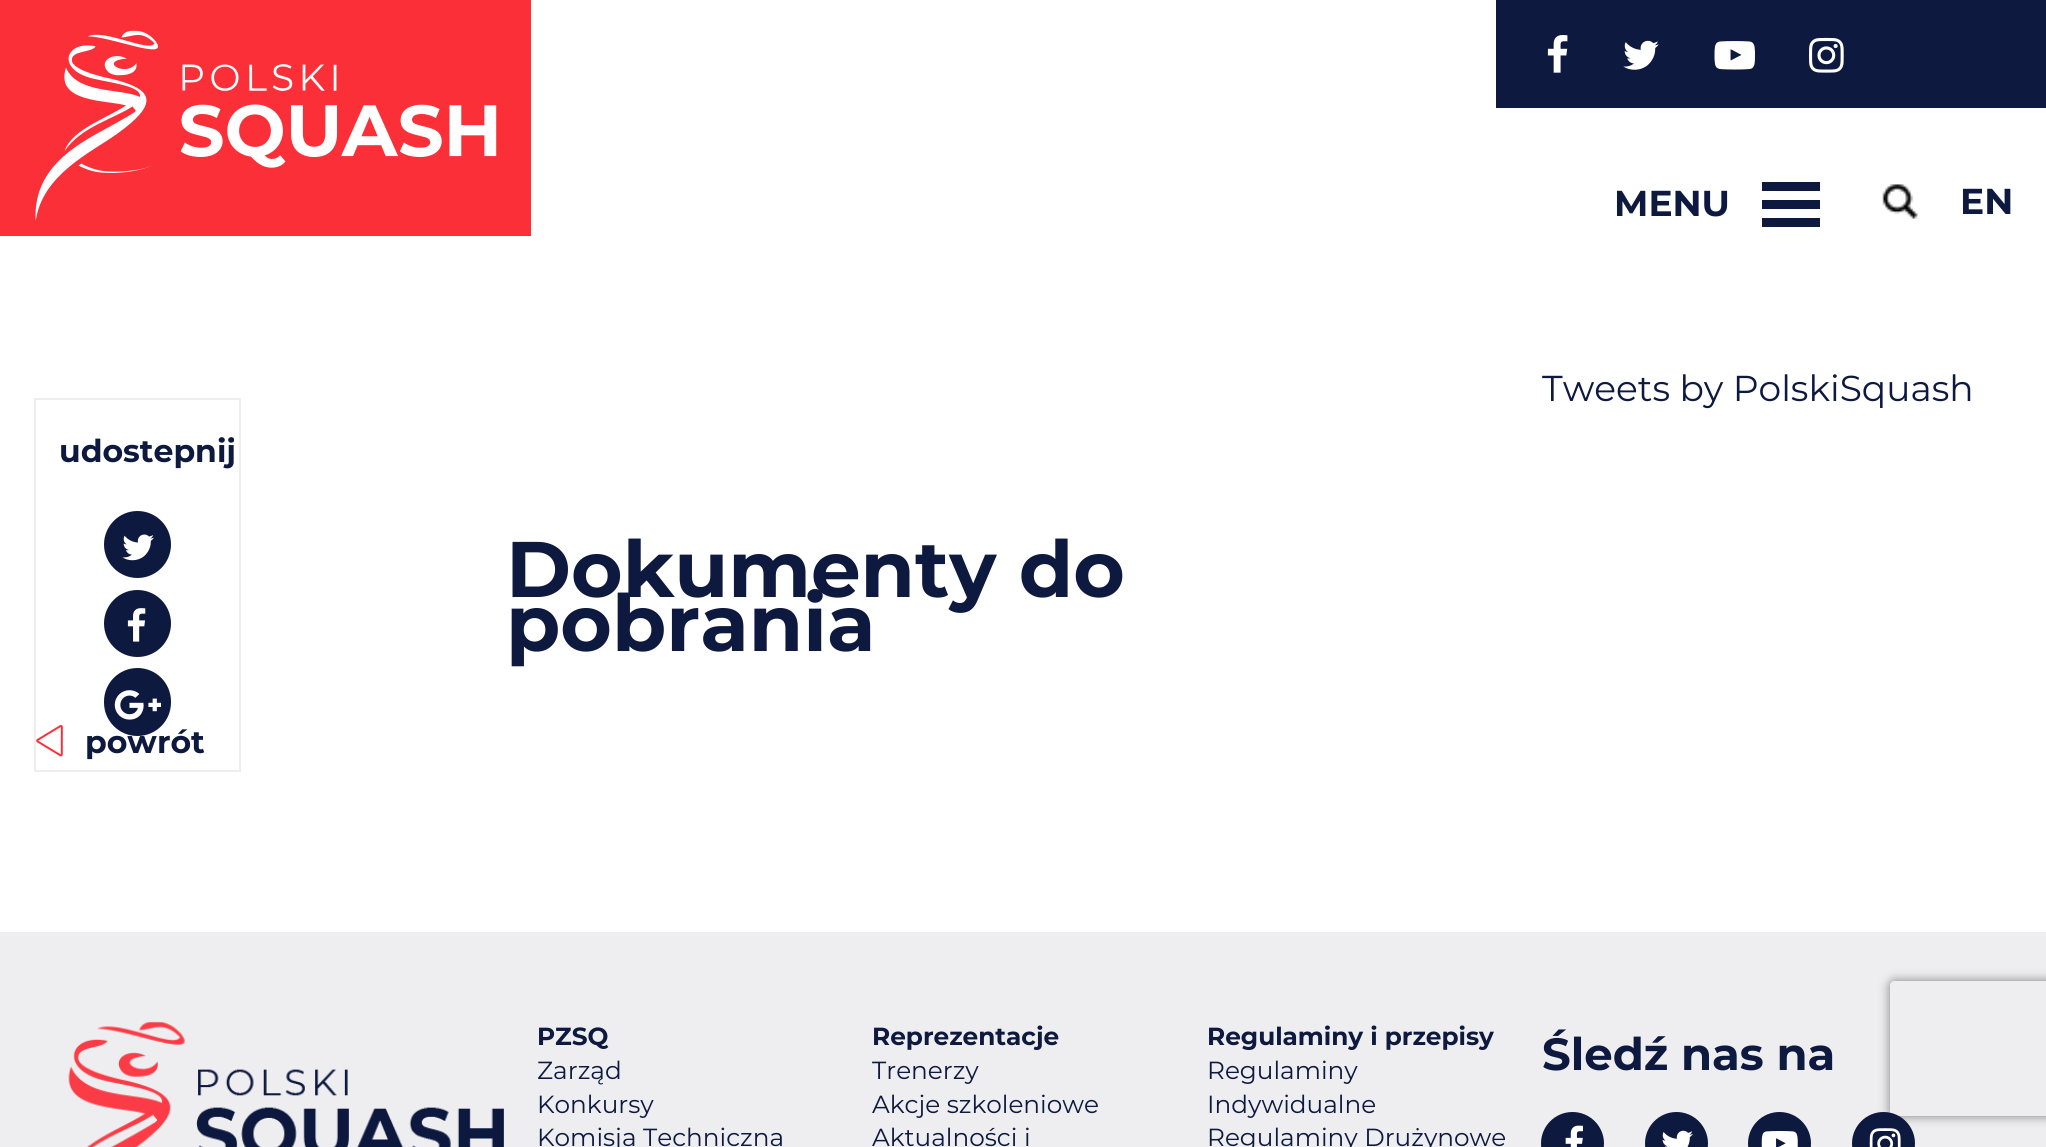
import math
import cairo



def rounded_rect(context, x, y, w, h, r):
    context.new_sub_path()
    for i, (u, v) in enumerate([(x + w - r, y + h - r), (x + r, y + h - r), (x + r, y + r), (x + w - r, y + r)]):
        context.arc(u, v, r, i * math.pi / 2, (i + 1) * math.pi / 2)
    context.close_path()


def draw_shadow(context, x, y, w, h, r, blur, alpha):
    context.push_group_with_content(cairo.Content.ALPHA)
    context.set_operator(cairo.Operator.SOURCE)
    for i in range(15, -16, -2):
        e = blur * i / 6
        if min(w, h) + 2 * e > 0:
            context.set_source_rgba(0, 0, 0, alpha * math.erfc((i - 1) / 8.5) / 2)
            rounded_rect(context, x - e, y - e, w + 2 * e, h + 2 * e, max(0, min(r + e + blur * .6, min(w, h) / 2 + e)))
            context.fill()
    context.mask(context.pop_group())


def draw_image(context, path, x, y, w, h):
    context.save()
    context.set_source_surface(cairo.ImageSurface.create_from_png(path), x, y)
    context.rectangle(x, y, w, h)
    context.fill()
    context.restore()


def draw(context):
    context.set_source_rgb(1, 1, 1)
    context.paint()
    context.set_source_rgb(251 / 255, 47 / 255, 55 / 255)
    context.rectangle(0, 0, 531, 236)
    context.fill()
    draw_image(context, "images/1.png", 35, 30, 462, 191)
    context.set_source_rgb(13 / 255, 25 / 255, 63 / 255)
    context.rectangle(1496, 0, 550, 108)
    context.fill()
    draw_image(context, "images/2.png", 1547, 35, 21, 38)
    draw_image(context, "images/3.png", 1623, 40, 36, 30)
    draw_image(context, "images/4.png", 1714, 41, 41, 29)
    draw_image(context, "images/5.png", 1809, 37, 35, 36)
    context.rectangle(1762, 200, 58, 9)
    context.fill()
    context.rectangle(1762, 182, 58, 9)
    context.fill()
    context.rectangle(1762, 218, 58, 9)
    context.fill()
    draw_image(context, "images/6.png", 1882, 184, 36, 35)
    context.rectangle(35, 399, 205, 372)
    context.set_source_rgb(238 / 255, 238 / 255, 240 / 255)
    context.stroke()
    context.set_source_rgb(13 / 255, 25 / 255, 63 / 255)
    context.arc(137.5, 544.5, 33.5, 0, 2 * math.pi)
    context.fill()
    draw_image(context, "images/7.png", 122, 534, 32, 27)
    context.arc(137.5, 623.5, 33.5, 0, 2 * math.pi)
    context.fill()
    draw_image(context, "images/8.png", 127, 608, 19, 34)
    rounded_rect(context, 104, 668, 67, 68, 33.5)
    context.fill()
    draw_image(context, "images/9.png", 114, 690, 48, 30)
    draw_image(context, "images/10.png", 36, 725, 27, 32)
    context.set_source_rgb(238 / 255, 238 / 255, 240 / 255)
    context.rectangle(0, 932, 2046, 215)
    context.fill()
    draw_image(context, "images/11.png", 68, 1021, 436, 126)
    context.set_source_rgb(13 / 255, 25 / 255, 63 / 255)
    context.arc(1572.5, 1143.5, 31.5, 0, 2 * math.pi)
    context.fill()
    draw_image(context, "images/12.png", 1565, 1125, 18, 22)
    context.arc(1676.5, 1143.5, 31.5, 0, 2 * math.pi)
    context.fill()
    draw_image(context, "images/13.png", 1662, 1130, 31, 17)
    context.arc(1779.5, 1143.5, 31.5, 0, 2 * math.pi)
    context.fill()
    draw_image(context, "images/14.png", 1761, 1131, 37, 16)
    context.save()
    context.set_fill_rule(cairo.FillRule.EVEN_ODD)
    context.new_path()
    context.move_to(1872, 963)
    context.line_to(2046, 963)
    context.line_to(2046, 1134)
    context.line_to(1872, 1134)
    context.close_path()
    context.move_to(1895, 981)
    context.line_to(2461, 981)
    context.curve_to(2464, 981, 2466, 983, 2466, 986)
    context.line_to(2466, 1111)
    context.curve_to(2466, 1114, 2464, 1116, 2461, 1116)
    context.line_to(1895, 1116)
    context.curve_to(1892, 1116, 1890, 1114, 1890, 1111)
    context.line_to(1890, 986)
    context.curve_to(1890, 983, 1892, 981, 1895, 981)
    context.close_path()
    context.clip()
    context.set_source_rgb(128 / 255, 128 / 255, 128 / 255)
    draw_shadow(context, 1890, 981, 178, 135, 5, 5.5, 1)
    context.restore()
    context.arc(1883.5, 1143.5, 31.5, 0, 2 * math.pi)
    context.fill()
    draw_image(context, "images/15.png", 1869, 1128, 32, 19)
    context.select_font_face("Montserrat", cairo.FontSlant.NORMAL, cairo.FontWeight.BOLD)
    context.set_font_size(36)
    context.move_to(1614, 216)
    context.show_text("MENU")
    context.move_to(1960, 214)
    context.show_text("EN")
    context.select_font_face("Montserrat")
    context.move_to(1542, 401)
    context.show_text("Tweets by PolskiSquash")
    context.select_font_face("Montserrat", cairo.FontSlant.NORMAL, cairo.FontWeight.BOLD)
    context.set_font_size(31.5)
    context.move_to(59, 462)
    context.show_text("udostepnij")
    context.set_font_size(78.75)
    context.move_to(506, 597)
    context.show_text("Dokumenty do")
    context.move_to(506, 651)
    context.show_text("pobrania")
    context.set_font_size(31.5)
    context.move_to(85, 753)
    context.show_text("powrót")
    context.set_font_size(24.75)
    context.move_to(537, 1045)
    context.show_text("PZSQ")
    context.select_font_face("Montserrat")
    context.move_to(537, 1079)
    context.show_text("Zarząd")
    context.move_to(537, 1113)
    context.show_text("Konkursy")
    context.move_to(537, 1146)
    context.show_text("Komisja Techniczna")
    context.select_font_face("Montserrat", cairo.FontSlant.NORMAL, cairo.FontWeight.BOLD)
    context.move_to(872, 1045)
    context.show_text("Reprezentacje")
    context.select_font_face("Montserrat")
    context.move_to(872, 1079)
    context.show_text("Trenerzy")
    context.move_to(872, 1113)
    context.show_text("Akcje szkoleniowe")
    context.move_to(872, 1146)
    context.show_text("Aktualności i")
    context.select_font_face("Montserrat", cairo.FontSlant.NORMAL, cairo.FontWeight.BOLD)
    context.move_to(1207, 1045)
    context.show_text("Regulaminy i przepisy")
    context.select_font_face("Montserrat")
    context.move_to(1207, 1079)
    context.show_text("Regulaminy")
    context.move_to(1207, 1113)
    context.show_text("Indywidualne")
    context.move_to(1207, 1146)
    context.show_text("Regulaminy Drużynowe")
    context.select_font_face("Montserrat", cairo.FontSlant.NORMAL, cairo.FontWeight.BOLD)
    context.set_font_size(45)
    context.move_to(1542, 1070)
    context.show_text("Śledź nas na")


surface = cairo.ImageSurface(cairo.Format.RGB24, 2046, 1147)
context = cairo.Context(surface)
options = cairo.FontOptions()
options.set_hint_metrics(cairo.HintMetrics.OFF)
options.set_hint_style(cairo.HintStyle.NONE)
context.set_font_options(options)
context.set_miter_limit(4)
draw(context)
surface.write_to_png("out.png")
